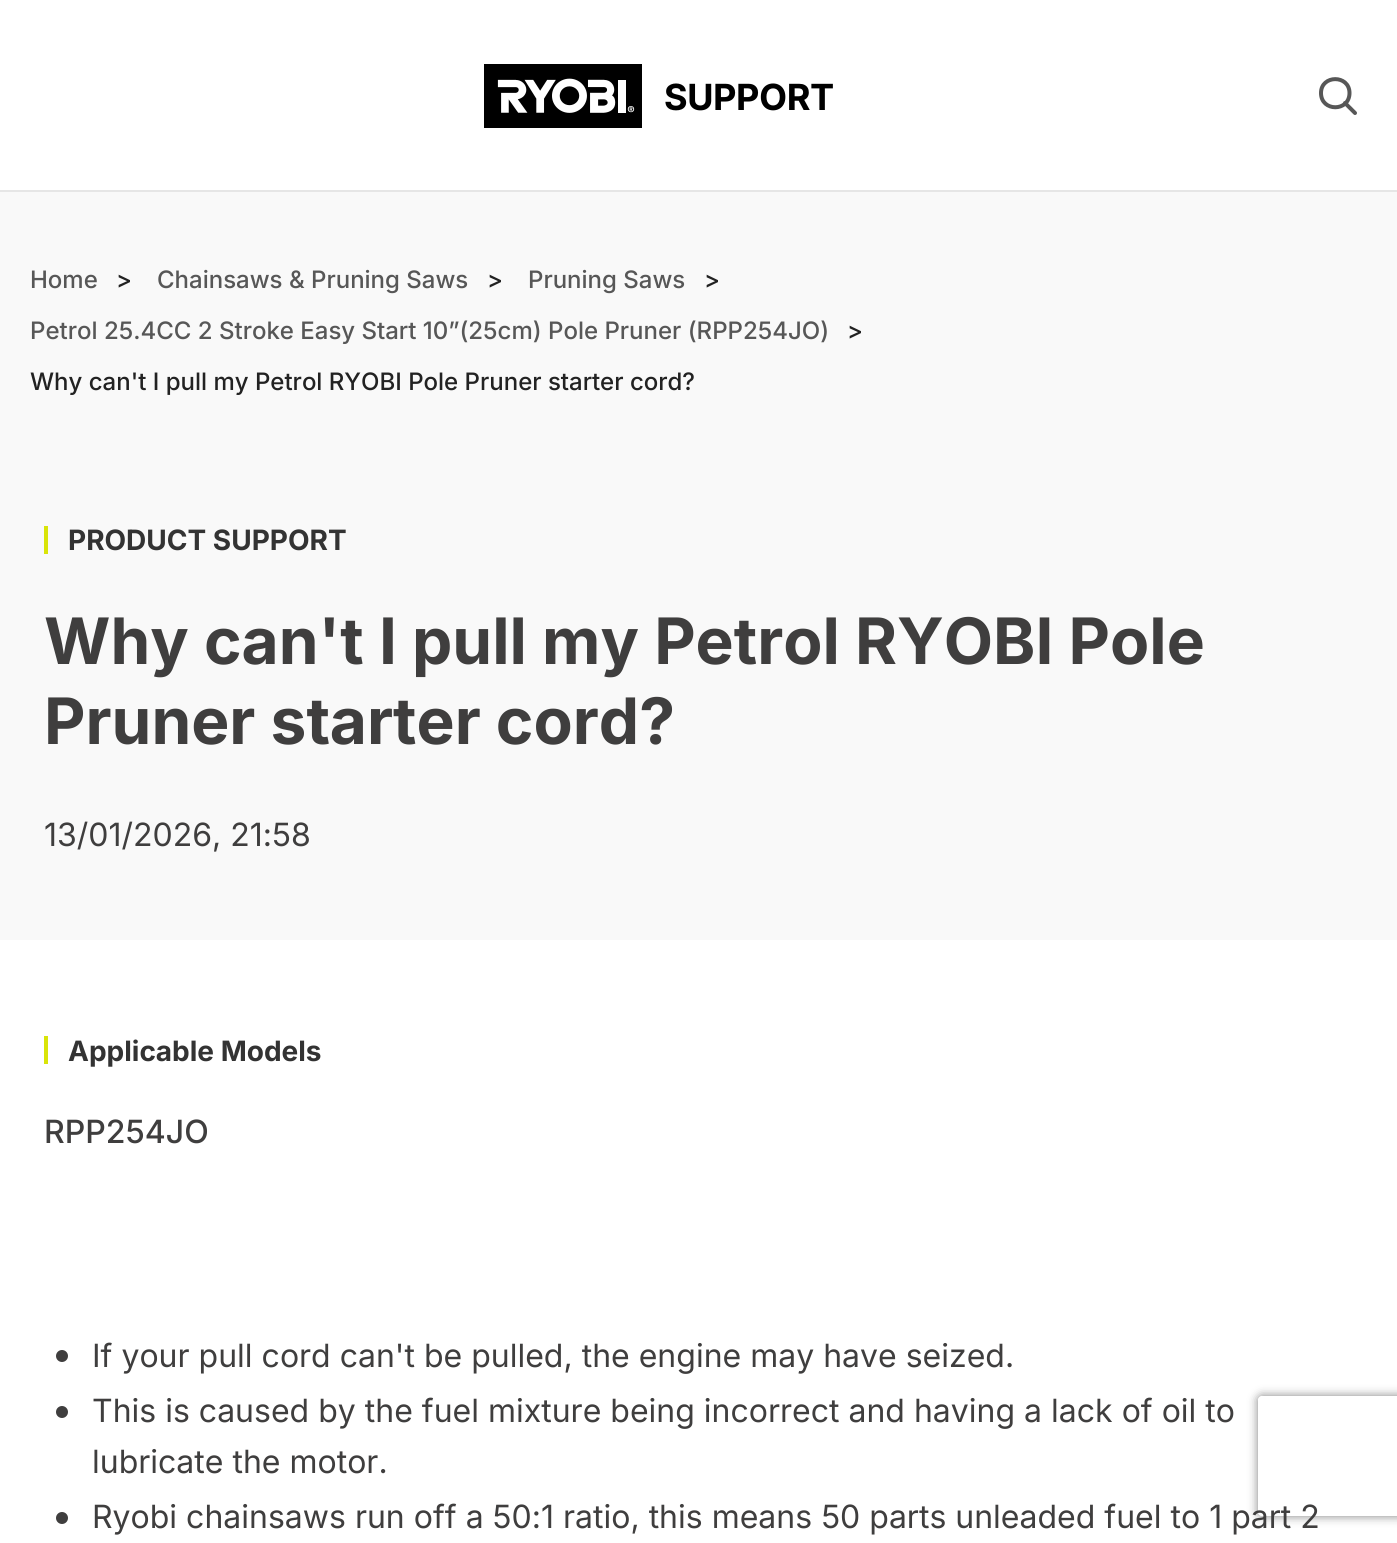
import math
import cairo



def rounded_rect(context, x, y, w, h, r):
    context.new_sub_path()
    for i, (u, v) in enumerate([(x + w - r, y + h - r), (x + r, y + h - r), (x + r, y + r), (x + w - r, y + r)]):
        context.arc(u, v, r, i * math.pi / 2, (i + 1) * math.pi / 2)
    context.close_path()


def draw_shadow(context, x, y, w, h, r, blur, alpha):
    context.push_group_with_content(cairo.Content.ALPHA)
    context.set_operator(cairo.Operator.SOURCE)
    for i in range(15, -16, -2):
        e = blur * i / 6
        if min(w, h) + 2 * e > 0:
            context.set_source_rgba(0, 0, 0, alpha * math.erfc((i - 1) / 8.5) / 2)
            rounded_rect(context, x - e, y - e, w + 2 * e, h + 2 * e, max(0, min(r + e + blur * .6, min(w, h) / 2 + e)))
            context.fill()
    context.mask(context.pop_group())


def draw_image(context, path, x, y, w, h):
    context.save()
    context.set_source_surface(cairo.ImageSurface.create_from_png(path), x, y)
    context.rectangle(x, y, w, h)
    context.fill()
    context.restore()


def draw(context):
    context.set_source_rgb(1, 1, 1)
    context.paint()
    context.set_source_rgb(230 / 255, 230 / 255, 230 / 255)
    context.rectangle(0, 190, 1397, 2)
    context.fill()
    draw_image(context, "images/1.png", 484, 64, 349, 64)
    context.new_path()
    context.move_to(1355, 113)
    context.line_to(1345, 103)
    context.move_to(1349.5, 93)
    context.curve_to(1349.5, 112, 1321, 112, 1321, 93)
    context.curve_to(1321, 74.5, 1349.5, 74.5, 1349.5, 93)
    context.close_path()
    context.set_source_rgb(87 / 255, 87 / 255, 87 / 255)
    context.set_line_width(4)
    context.set_line_cap(cairo.LineCap.ROUND)
    context.set_line_join(cairo.LineJoin.ROUND)
    context.stroke()
    context.set_source_rgb(249 / 255, 249 / 255, 249 / 255)
    context.rectangle(0, 192, 1397, 748)
    context.fill()
    context.set_source_rgb(217 / 255, 228 / 255, 9 / 255)
    context.rectangle(44, 526, 4, 28)
    context.fill()
    context.rectangle(44, 1036, 4, 28)
    context.fill()
    context.set_source_rgb(63 / 255, 62 / 255, 62 / 255)
    context.arc(62, 1356, 6, 0, 2 * math.pi)
    context.fill()
    context.arc(62, 1412, 6, 0, 2 * math.pi)
    context.fill()
    context.arc(62, 1518, 6, 0, 2 * math.pi)
    context.fill()
    context.save()
    context.set_fill_rule(cairo.FillRule.EVEN_ODD)
    context.new_path()
    context.move_to(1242, 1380)
    context.line_to(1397, 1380)
    context.line_to(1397, 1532)
    context.line_to(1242, 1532)
    context.close_path()
    context.move_to(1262, 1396)
    context.line_to(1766, 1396)
    context.curve_to(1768, 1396, 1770, 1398, 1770, 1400)
    context.line_to(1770, 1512)
    context.curve_to(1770, 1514, 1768, 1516, 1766, 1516)
    context.line_to(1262, 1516)
    context.curve_to(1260, 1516, 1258, 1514, 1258, 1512)
    context.line_to(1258, 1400)
    context.curve_to(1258, 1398, 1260, 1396, 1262, 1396)
    context.close_path()
    context.clip()
    context.set_source_rgb(128 / 255, 128 / 255, 128 / 255)
    draw_shadow(context, 1258, 1396, 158, 120, 4, 5, 1)
    context.restore()
    context.select_font_face("Inter Medium")
    context.set_font_size(24)
    context.set_source_rgb(87 / 255, 87 / 255, 87 / 255)
    context.move_to(30, 288)
    context.show_text("Home")
    context.set_source_rgb(34 / 255, 34 / 255, 34 / 255)
    context.move_to(116, 288)
    context.show_text(">")
    context.set_source_rgb(87 / 255, 87 / 255, 87 / 255)
    context.move_to(157, 288)
    context.show_text("Chainsaws & Pruning Saws")
    context.set_source_rgb(34 / 255, 34 / 255, 34 / 255)
    context.move_to(487, 288)
    context.show_text(">")
    context.set_source_rgb(87 / 255, 87 / 255, 87 / 255)
    context.move_to(528, 288)
    context.show_text("Pruning Saws")
    context.set_source_rgb(34 / 255, 34 / 255, 34 / 255)
    context.move_to(704, 288)
    context.show_text(">")
    context.set_source_rgb(87 / 255, 87 / 255, 87 / 255)
    context.move_to(30, 339)
    context.show_text("Petrol 25.4CC 2 Stroke Easy Start 10”(25cm) Pole Pruner (RPP254JO)")
    context.set_source_rgb(34 / 255, 34 / 255, 34 / 255)
    context.move_to(847, 339)
    context.show_text(">")
    context.move_to(30, 390)
    context.show_text("Why can't I pull my Petrol RYOBI Pole Pruner starter cord?")
    context.select_font_face("Inter", cairo.FontSlant.NORMAL, cairo.FontWeight.BOLD)
    context.set_font_size(28)
    context.set_source_rgb(51 / 255, 51 / 255, 51 / 255)
    context.move_to(68, 550)
    context.show_text("PRODUCT SUPPORT")
    context.set_font_size(64)
    context.set_source_rgb(63 / 255, 62 / 255, 62 / 255)
    context.move_to(44, 664)
    context.show_text("Why can't I pull my Petrol RYOBI Pole")
    context.move_to(44, 744)
    context.show_text("Pruner starter cord?")
    context.select_font_face("Inter")
    context.set_font_size(32)
    context.move_to(44, 846)
    context.show_text("13/01/2026, 21:58")
    context.select_font_face("Inter", cairo.FontSlant.NORMAL, cairo.FontWeight.BOLD)
    context.set_font_size(28)
    context.set_source_rgb(51 / 255, 51 / 255, 51 / 255)
    context.move_to(68, 1061)
    context.show_text("Applicable Models")
    context.select_font_face("Inter Medium")
    context.set_font_size(32)
    context.set_source_rgb(63 / 255, 62 / 255, 62 / 255)
    context.move_to(44, 1143)
    context.show_text("RPP254JO")
    context.select_font_face("Inter")
    context.move_to(92, 1367)
    context.show_text("If your pull cord can't be pulled, the engine may have seized.")
    context.move_to(92, 1422)
    context.show_text("This is caused by the fuel mixture being incorrect and having a lack of oil to")
    context.move_to(92, 1473)
    context.show_text("lubricate the motor.")
    context.move_to(92, 1528)
    context.show_text("Ryobi chainsaws run off a 50:1 ratio, this means 50 parts unleaded fuel to 1 part 2")


surface = cairo.ImageSurface(cairo.Format.RGB24, 1397, 1543)
context = cairo.Context(surface)
options = cairo.FontOptions()
options.set_hint_metrics(cairo.HintMetrics.OFF)
options.set_hint_style(cairo.HintStyle.NONE)
context.set_font_options(options)
context.set_miter_limit(4)
draw(context)
surface.write_to_png("out.png")
